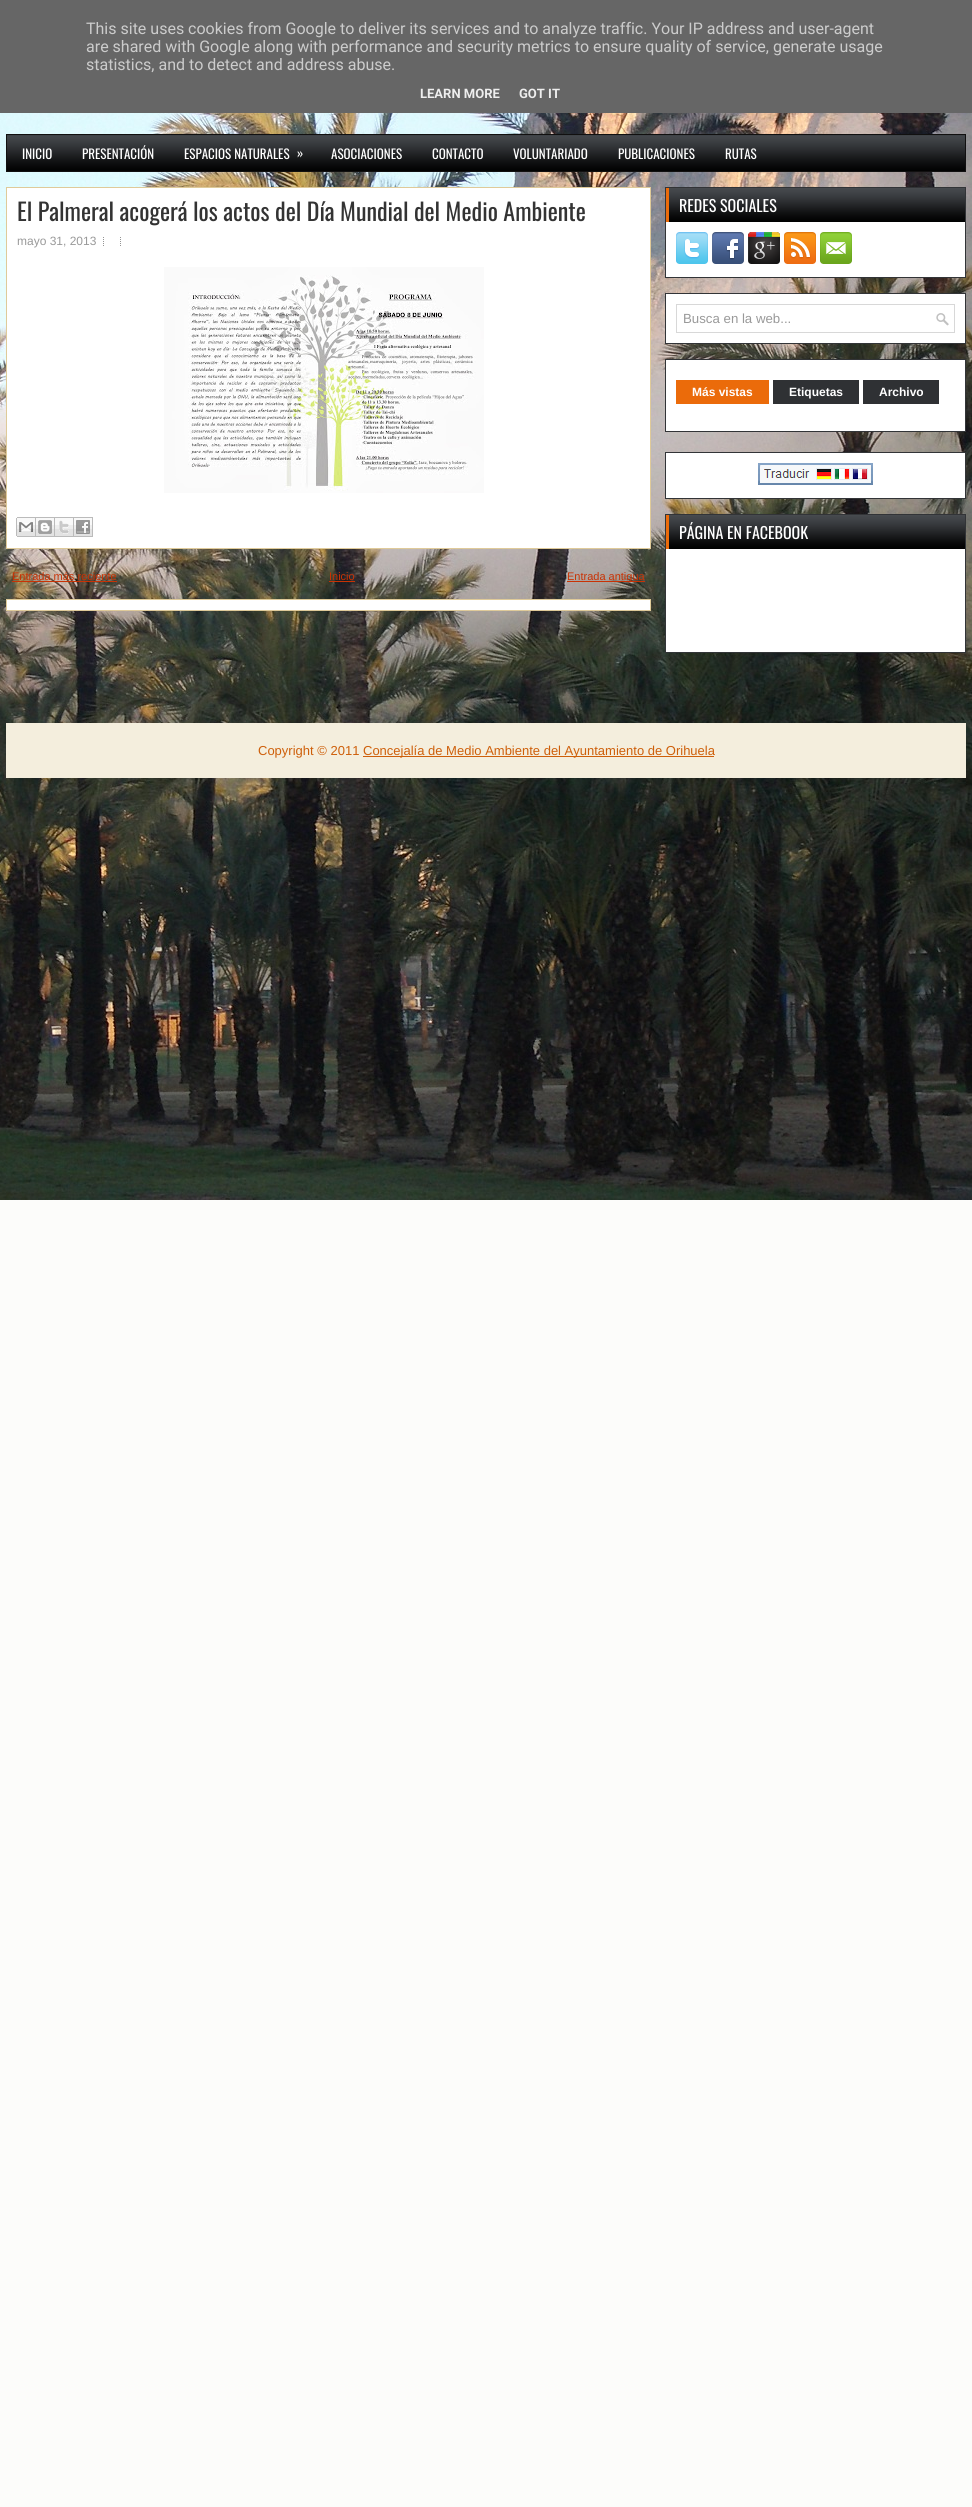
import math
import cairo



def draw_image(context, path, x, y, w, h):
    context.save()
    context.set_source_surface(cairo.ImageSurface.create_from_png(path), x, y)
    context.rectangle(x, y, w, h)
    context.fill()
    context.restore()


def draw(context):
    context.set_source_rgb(252 / 255, 252 / 255, 250 / 255)
    context.paint()
    draw_image(context, "images/1.png", 0, 113, 972, 1087)
    context.set_source_rgb(102 / 255, 102 / 255, 102 / 255)
    context.rectangle(0, 0, 972, 113)
    context.fill()
    draw_image(context, "images/2.png", 7, 135, 958, 36)
    context.rectangle(6.5, 134.5, 959, 37)
    context.set_source_rgb(17 / 255, 16 / 255, 16 / 255)
    context.set_line_width(1)
    context.stroke()
    context.set_source_rgb(1, 1, 1)
    context.rectangle(6.5, 187.5, 644, 361)
    context.fill_preserve()
    context.set_source_rgb(223 / 255, 202 / 255, 153 / 255)
    context.stroke()
    draw_image(context, "images/3.png", 103, 237, 1, 9)
    draw_image(context, "images/3.png", 120, 237, 1, 9)
    draw_image(context, "images/4.png", 164, 267, 320, 226)
    draw_image(context, "images/5.png", 16, 517, 20, 20)
    draw_image(context, "images/6.png", 36, 517, 19, 20)
    draw_image(context, "images/7.png", 55, 517, 19, 20)
    draw_image(context, "images/8.png", 74, 517, 19, 20)
    context.set_source_rgb(201 / 255, 50 / 255, 4 / 255)
    context.rectangle(12, 581, 105, 1)
    context.fill()
    context.rectangle(329, 581, 26, 1)
    context.fill()
    context.rectangle(567, 581, 78, 1)
    context.fill()
    context.set_source_rgb(1, 1, 1)
    context.rectangle(6.5, 599.5, 644, 11)
    context.fill_preserve()
    context.set_source_rgb(223 / 255, 202 / 255, 153 / 255)
    context.stroke()
    context.set_source_rgb(1, 1, 1)
    context.rectangle(666, 222, 299, 55)
    context.fill()
    context.rectangle(665.5, 187.5, 300, 90)
    context.set_source_rgb(50 / 255, 52 / 255, 55 / 255)
    context.stroke()
    draw_image(context, "images/9.png", 669, 188, 296, 34)
    context.set_source_rgb(235 / 255, 107 / 255, 10 / 255)
    context.rectangle(666, 188, 3, 34)
    context.fill()
    draw_image(context, "images/10.png", 676, 232, 32, 32)
    draw_image(context, "images/11.png", 712, 232, 32, 32)
    draw_image(context, "images/12.png", 748, 232, 32, 32)
    draw_image(context, "images/13.png", 784, 232, 32, 32)
    draw_image(context, "images/14.png", 820, 232, 32, 32)
    context.set_source_rgb(1, 1, 1)
    context.rectangle(665.5, 293.5, 300, 50)
    context.fill_preserve()
    context.set_source_rgb(50 / 255, 52 / 255, 55 / 255)
    context.stroke()
    draw_image(context, "images/15.png", 936, 313, 13, 13)
    context.rectangle(676.5, 304.5, 278, 28)
    context.set_source_rgb(216 / 255, 216 / 255, 216 / 255)
    context.stroke()
    context.set_source_rgb(1, 1, 1)
    context.rectangle(665.5, 359.5, 300, 72)
    context.fill_preserve()
    context.set_source_rgb(50 / 255, 52 / 255, 55 / 255)
    context.stroke()
    context.set_source_rgb(235 / 255, 107 / 255, 10 / 255)
    context.rectangle(676, 380, 93, 24)
    context.fill()
    context.set_source_rgb(47 / 255, 49 / 255, 52 / 255)
    context.rectangle(773, 380, 86, 24)
    context.fill()
    context.rectangle(863, 380, 76, 24)
    context.fill()
    context.set_source_rgb(1, 1, 1)
    context.rectangle(665.5, 452.5, 300, 46)
    context.fill_preserve()
    context.set_source_rgb(50 / 255, 52 / 255, 55 / 255)
    context.stroke()
    draw_image(context, "images/16.png", 758, 463, 115, 22)
    context.set_source_rgb(1, 1, 1)
    context.rectangle(666, 549, 299, 103)
    context.fill()
    context.rectangle(665.5, 514.5, 300, 138)
    context.set_source_rgb(50 / 255, 52 / 255, 55 / 255)
    context.stroke()
    draw_image(context, "images/9.png", 669, 515, 296, 34)
    context.set_source_rgb(235 / 255, 107 / 255, 10 / 255)
    context.rectangle(666, 515, 3, 34)
    context.fill()
    context.set_source_rgb(244 / 255, 238 / 255, 221 / 255)
    context.rectangle(6, 723, 960, 55)
    context.fill()
    context.set_source_rgb(206 / 255, 95 / 255, 10 / 255)
    context.rectangle(363, 756, 351, 1)
    context.fill()
    context.select_font_face("Roboto")
    context.set_font_size(16)
    context.set_source_rgb(204 / 255, 204 / 255, 204 / 255)
    context.move_to(86, 34)
    context.show_text("This site uses cookies from Google to deliver its services and to analyze traffic. Your IP address and user-agent")
    context.move_to(86, 52)
    context.show_text("are shared with Google along with performance and security metrics to ensure quality of service, generate usage")
    context.move_to(86, 70)
    context.show_text("statistics, and to detect and address abuse.")
    context.select_font_face("Roboto", cairo.FontSlant.NORMAL, cairo.FontWeight.BOLD)
    context.set_font_size(13)
    context.set_source_rgb(238 / 255, 238 / 255, 238 / 255)
    context.move_to(420, 98)
    context.show_text("LEARN MORE")
    context.move_to(519, 98)
    context.show_text("GOT IT")
    context.select_font_face("Oswald")
    context.set_source_rgb(1, 1, 1)
    context.move_to(22, 159)
    context.show_text("INICIO")
    context.move_to(82, 159)
    context.show_text("PRESENTACIÓN")
    context.move_to(184, 159)
    context.show_text("ESPACIOS NATURALES")
    context.move_to(297, 158)
    context.show_text("»")
    context.move_to(331, 159)
    context.show_text("ASOCIACIONES")
    context.move_to(432, 159)
    context.show_text("CONTACTO")
    context.move_to(513, 159)
    context.show_text("VOLUNTARIADO")
    context.move_to(618, 159)
    context.show_text("PUBLICACIONES")
    context.move_to(725, 159)
    context.show_text("RUTAS")
    context.set_font_size(24)
    context.set_source_rgb(51 / 255, 51 / 255, 51 / 255)
    context.move_to(17, 221)
    context.show_text("El Palmeral acogerá los actos del Día Mundial del Medio Ambiente")
    context.select_font_face("Liberation Sans")
    context.set_font_size(12)
    context.set_source_rgb(153 / 255, 153 / 255, 153 / 255)
    context.move_to(17, 245)
    context.show_text("mayo 31, 2013")
    context.set_font_size(11)
    context.set_source_rgb(201 / 255, 50 / 255, 4 / 255)
    context.move_to(12, 580)
    context.show_text("Entrada más reciente")
    context.move_to(329, 580)
    context.show_text("Inicio")
    context.move_to(567, 580)
    context.show_text("Entrada antigua")
    context.select_font_face("Oswald")
    context.set_font_size(16)
    context.set_source_rgb(1, 1, 1)
    context.move_to(679, 212)
    context.show_text("REDES SOCIALES")
    context.select_font_face("Liberation Sans")
    context.set_font_size(13.25)
    context.set_source_rgb(153 / 255, 153 / 255, 153 / 255)
    context.move_to(683, 323)
    context.show_text("Busca en la web...")
    context.select_font_face("Liberation Sans", cairo.FontSlant.NORMAL, cairo.FontWeight.BOLD)
    context.set_font_size(12)
    context.set_source_rgb(1, 1, 1)
    context.move_to(692, 396)
    context.show_text("Más vistas")
    context.move_to(789, 396)
    context.show_text("Etiquetas")
    context.move_to(879, 396)
    context.show_text("Archivo")
    context.select_font_face("Oswald")
    context.set_font_size(16)
    context.move_to(679, 539)
    context.show_text("PÁGINA EN FACEBOOK")
    context.select_font_face("Liberation Sans")
    context.set_font_size(13)
    context.set_source_rgb(206 / 255, 95 / 255, 10 / 255)
    context.move_to(258, 755)
    context.show_text("Copyright © 2011")
    context.move_to(363, 755)
    context.show_text("Concejalía de Medio Ambiente del Ayuntamiento de Orihuela")


surface = cairo.ImageSurface(cairo.Format.RGB24, 972, 2507)
context = cairo.Context(surface)
options = cairo.FontOptions()
options.set_hint_metrics(cairo.HintMetrics.OFF)
options.set_hint_style(cairo.HintStyle.NONE)
context.set_font_options(options)
context.set_miter_limit(4)
draw(context)
surface.write_to_png("out.png")
